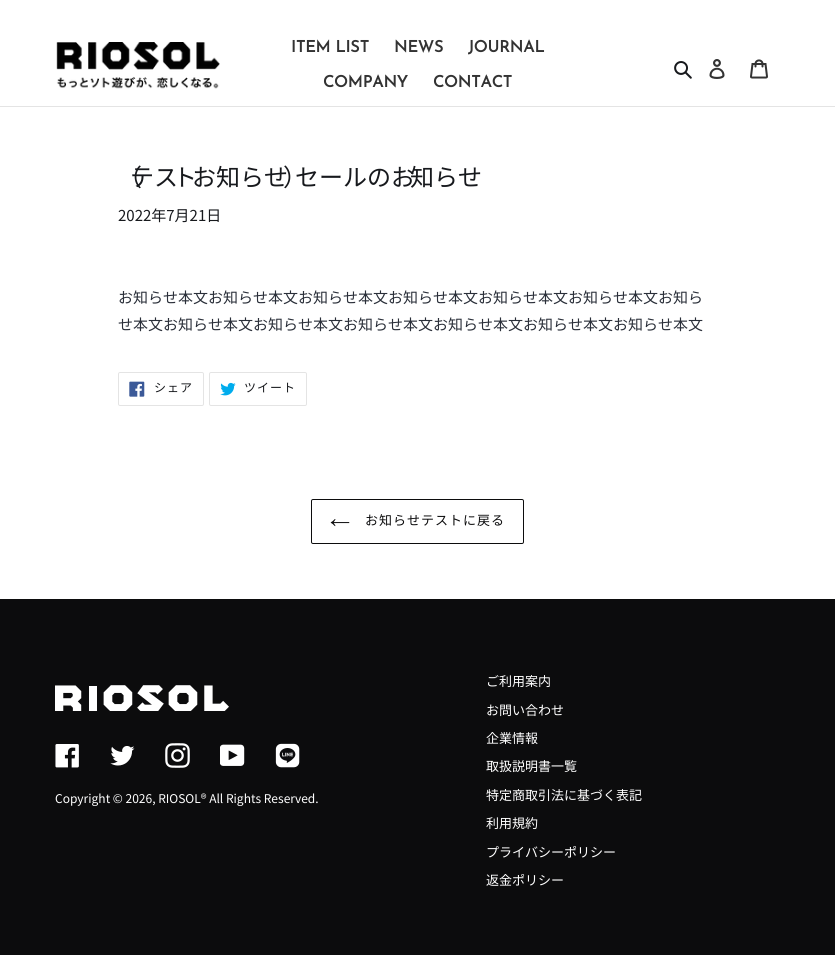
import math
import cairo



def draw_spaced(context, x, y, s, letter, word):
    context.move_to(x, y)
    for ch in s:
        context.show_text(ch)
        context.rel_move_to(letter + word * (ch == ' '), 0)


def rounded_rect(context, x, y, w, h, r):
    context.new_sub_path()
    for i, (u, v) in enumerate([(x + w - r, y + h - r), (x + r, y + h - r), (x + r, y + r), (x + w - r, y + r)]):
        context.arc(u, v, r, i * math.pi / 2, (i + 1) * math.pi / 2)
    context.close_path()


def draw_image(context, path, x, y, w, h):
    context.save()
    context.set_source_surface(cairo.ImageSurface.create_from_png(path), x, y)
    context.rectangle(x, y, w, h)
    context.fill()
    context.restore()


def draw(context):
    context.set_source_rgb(1, 1, 1)
    context.paint()
    context.set_source_rgb(228 / 255, 228 / 255, 228 / 255)
    context.rectangle(0, 106, 835, 1)
    context.fill()
    draw_image(context, "images/1.png", 56, 42, 164, 47)
    draw_image(context, "images/2.png", 674, 61, 18, 18)
    draw_image(context, "images/3.png", 709, 59, 16, 20)
    draw_image(context, "images/4.png", 750, 59, 18, 20)
    rounded_rect(context, 118.5, 372.5, 85, 33, 1.5)
    context.set_line_width(1)
    context.stroke()
    draw_image(context, "images/5.png", 129, 381, 16, 16)
    rounded_rect(context, 209.5, 372.5, 97, 33, 1.5)
    context.stroke()
    draw_image(context, "images/6.png", 220, 382, 16, 14)
    rounded_rect(context, 311.5, 499.5, 212, 44, 1.5)
    context.set_source_rgb(12 / 255, 12 / 255, 13 / 255)
    context.stroke()
    draw_image(context, "images/7.png", 330, 519, 20, 8)
    context.rectangle(0, 599, 835, 356)
    context.fill()
    draw_image(context, "images/8.png", 55, 685, 174, 26)
    draw_image(context, "images/9.png", 55, 744, 24, 24)
    draw_image(context, "images/10.png", 110, 746, 25, 20)
    draw_image(context, "images/11.png", 165, 743, 25, 25)
    draw_image(context, "images/12.png", 220, 744, 25, 22)
    draw_image(context, "images/13.png", 275, 743, 25, 25)
    context.select_font_face("Josefin Sans", cairo.FontSlant.NORMAL, cairo.FontWeight.BOLD)
    context.set_font_size(16)
    context.set_source_rgb(51 / 255, 51 / 255, 51 / 255)
    context.move_to(291, 52)
    context.show_text("ITEM LIST")
    context.move_to(394, 52)
    context.show_text("NEWS")
    context.move_to(468, 52)
    context.show_text("JOURNAL")
    context.move_to(323, 87)
    context.show_text("COMPANY")
    context.move_to(433, 87)
    context.show_text("CONTACT")
    context.select_font_face("Noto Sans JP")
    context.set_font_size(24)
    context.set_source_rgb(23 / 255, 25 / 255, 29 / 255)
    context.move_to(118, 186)
    context.show_text("（")
    context.move_to(130, 186)
    context.show_text("テス")
    context.move_to(173, 186)
    context.show_text("ト")
    context.move_to(192, 186)
    context.show_text("お知らせ")
    context.move_to(283, 186)
    context.show_text("）")
    context.move_to(295, 186)
    context.show_text("セールのお")
    context.move_to(410, 186)
    context.show_text("知らせ")
    context.set_font_size(15)
    context.move_to(118, 221)
    context.show_text("2022年7月21日")
    context.set_source_rgb(42 / 255, 47 / 255, 57 / 255)
    context.move_to(118, 303)
    context.show_text("お知らせ本文お知らせ本文お知らせ本文お知らせ本文お知らせ本文お知らせ本文お知ら")
    context.move_to(118, 330)
    context.show_text("せ本文お知らせ本文お知らせ本文お知らせ本文お知らせ本文お知らせ本文お知らせ本文")
    context.set_font_size(12)
    context.set_source_rgb(23 / 255, 25 / 255, 29 / 255)
    draw_spaced(context, 154, 392, "シェア", 1, 0)
    draw_spaced(context, 244, 392, "ツイート", 1, 0)
    context.set_font_size(13)
    context.set_source_rgb(12 / 255, 12 / 255, 13 / 255)
    draw_spaced(context, 365, 525, "お知らせテストに戻る", 1, 0)
    context.set_font_size(12)
    context.set_source_rgb(1, 1, 1)
    context.move_to(55, 803)
    context.show_text("Copyright © 2026, RIOSOL® All Rights Reserved.")
    context.set_font_size(13)
    context.move_to(486, 686)
    context.show_text("ご利用案内")
    context.move_to(486, 715)
    context.show_text("お問い合わせ")
    context.move_to(486, 743)
    context.show_text("企業情報")
    context.move_to(486, 771)
    context.show_text("取扱説明書一覧")
    context.move_to(486, 800)
    context.show_text("特定商取引法に基づく表記")
    context.move_to(486, 828)
    context.show_text("利用規約")
    context.move_to(486, 857)
    context.show_text("プライバシーポリシー")
    context.move_to(486, 885)
    context.show_text("返金ポリシー")


surface = cairo.ImageSurface(cairo.Format.RGB24, 835, 955)
context = cairo.Context(surface)
options = cairo.FontOptions()
options.set_hint_metrics(cairo.HintMetrics.OFF)
options.set_hint_style(cairo.HintStyle.NONE)
context.set_font_options(options)
context.set_miter_limit(4)
draw(context)
surface.write_to_png("out.png")
